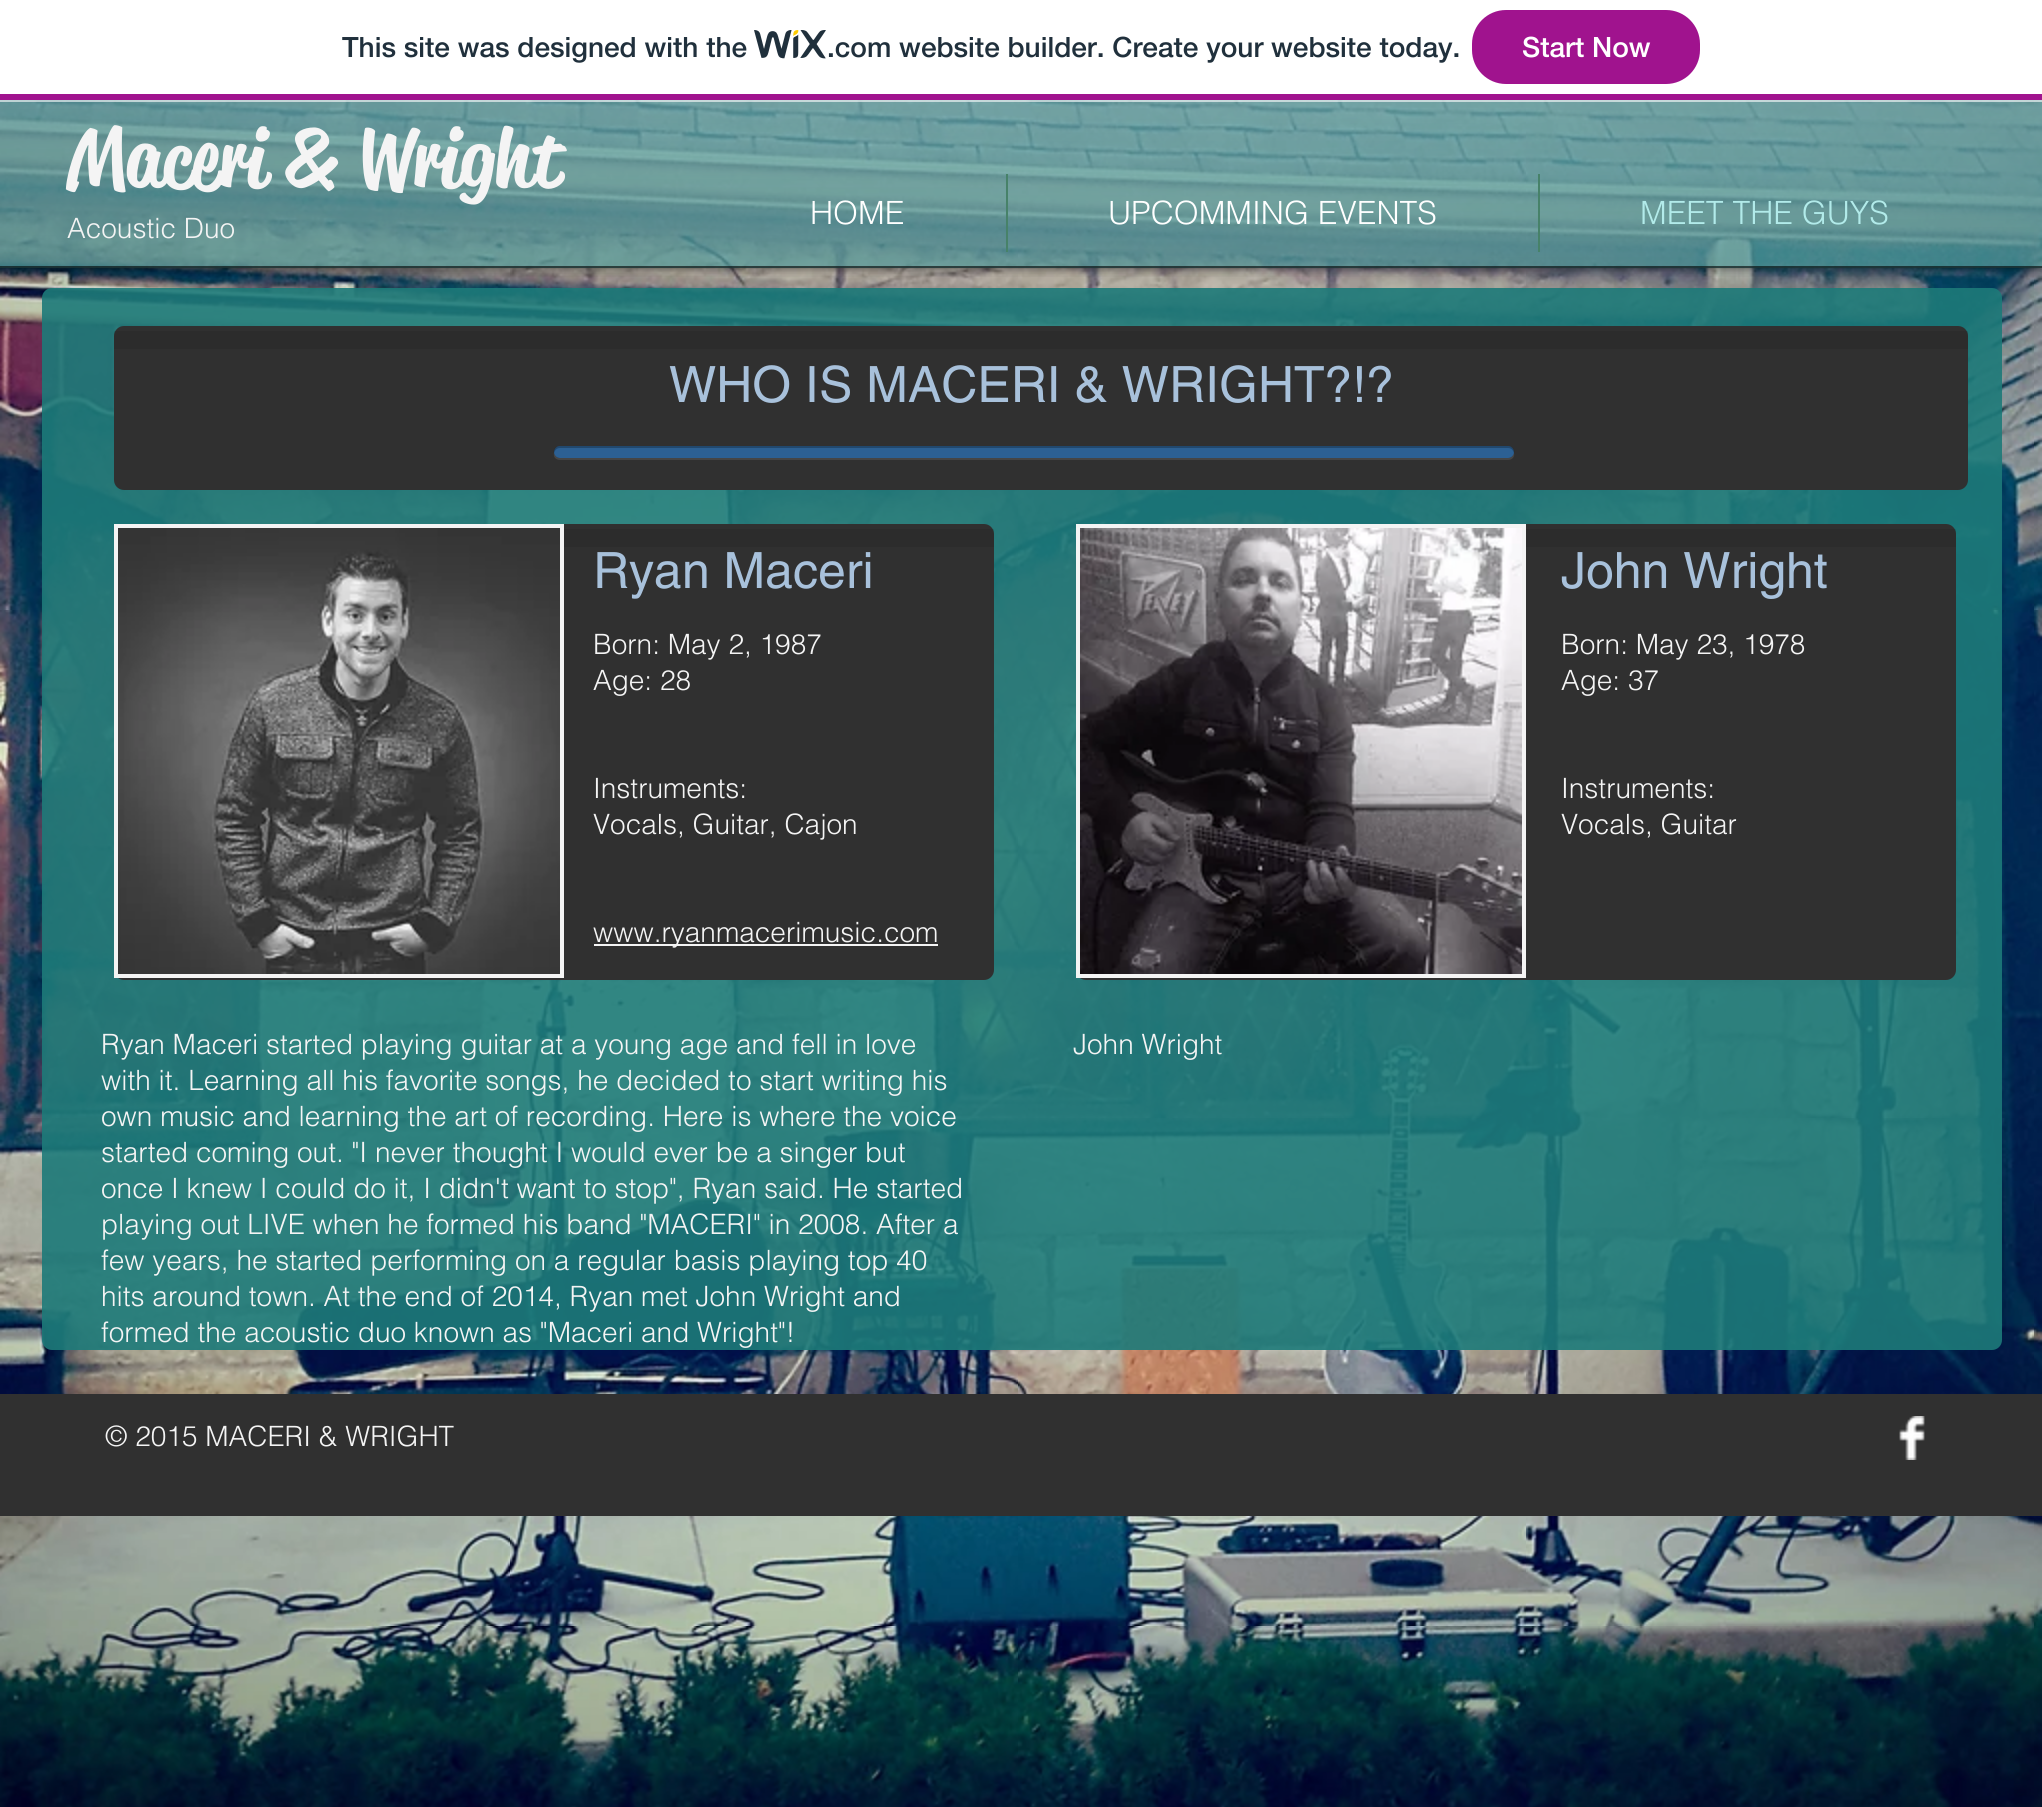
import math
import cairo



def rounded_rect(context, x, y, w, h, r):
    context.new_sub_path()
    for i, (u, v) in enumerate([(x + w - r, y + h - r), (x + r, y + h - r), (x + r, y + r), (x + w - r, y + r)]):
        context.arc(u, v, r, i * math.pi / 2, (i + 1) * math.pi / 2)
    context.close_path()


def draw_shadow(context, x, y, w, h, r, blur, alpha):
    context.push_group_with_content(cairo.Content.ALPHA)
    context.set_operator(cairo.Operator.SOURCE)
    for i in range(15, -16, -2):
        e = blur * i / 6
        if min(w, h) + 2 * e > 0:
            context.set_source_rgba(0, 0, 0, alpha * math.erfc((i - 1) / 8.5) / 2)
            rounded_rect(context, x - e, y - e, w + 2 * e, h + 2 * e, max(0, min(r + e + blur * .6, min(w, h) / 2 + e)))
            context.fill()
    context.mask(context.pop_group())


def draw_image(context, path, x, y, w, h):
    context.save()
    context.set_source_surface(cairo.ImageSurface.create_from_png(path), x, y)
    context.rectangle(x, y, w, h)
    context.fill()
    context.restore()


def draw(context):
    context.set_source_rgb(1, 1, 1)
    context.paint()
    draw_image(context, "images/2.png", 0, 100, 2042, 1707)
    context.save()
    context.rectangle(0, 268, 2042, 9)
    context.clip()
    context.set_source_rgb(0, 0, 0)
    draw_shadow(context, 0, 100, 2042, 168, 0, 5, 0.6)
    context.restore()
    context.set_source_rgb(1, 1, 1)
    context.rectangle(0, 89, 2042, 5)
    context.fill()
    context.set_source_rgb(160 / 255, 19 / 255, 142 / 255)
    context.rectangle(0, 94, 2042, 6)
    context.fill()
    draw_image(context, "images/1.png", 754, 30, 72, 29)
    rounded_rect(context, 1473, 11, 226, 72, 33)
    context.fill_preserve()
    context.stroke()
    context.set_source_rgba(29 / 255, 122 / 255, 121 / 255, 0.66)
    context.rectangle(0, 100, 2042, 168)
    context.fill()
    draw_image(context, "images/3.png", 0, 100, 2042, 168)
    context.set_source_rgba(0, 0, 0, 0.6)
    context.rectangle(0, 266, 2042, 2)
    context.fill()
    context.set_source_rgba(1, 1, 1, 0.6)
    context.rectangle(0, 100, 2042, 2)
    context.fill()
    context.set_source_rgb(71 / 255, 130 / 255, 105 / 255)
    context.rectangle(1006, 174, 2, 78)
    context.fill()
    context.rectangle(1538, 174, 2, 78)
    context.fill()
    context.set_source_rgba(29 / 255, 122 / 255, 121 / 255, 0.9)
    rounded_rect(context, 42, 288, 1960, 1062, 10)
    context.fill()
    context.set_source_rgb(48 / 255, 48 / 255, 48 / 255)
    rounded_rect(context, 114, 326, 1854, 164, 10)
    context.fill()
    context.set_source_rgba(0, 0, 0, 0.09)
    context.rectangle(114, 331, 1854, 18)
    context.fill()
    context.set_source_rgb(69 / 255, 69 / 255, 69 / 255)
    context.new_path()
    context.move_to(554, 453)
    context.curve_to(553, 457, 556, 460, 560, 460)
    context.line_to(1508, 460)
    context.curve_to(1512, 460, 1515, 457, 1514, 453)
    context.curve_to(1513, 456, 1511, 458, 1508, 458)
    context.line_to(560, 458)
    context.curve_to(557, 458, 555, 456, 554, 453)
    context.close_path()
    context.fill()
    context.set_source_rgb(44 / 255, 96 / 255, 147 / 255)
    rounded_rect(context, 554, 446, 960, 12, 6)
    context.fill()
    context.set_source_rgba(0, 0, 0, 0.25)
    context.new_path()
    context.move_to(560, 448)
    context.line_to(1508, 448)
    context.curve_to(1511, 448, 1513, 450, 1514, 453)
    context.curve_to(1515, 449, 1512, 446, 1508, 446)
    context.line_to(560, 446)
    context.curve_to(556, 446, 553, 449, 554, 453)
    context.curve_to(555, 450, 557, 448, 560, 448)
    context.close_path()
    context.fill()
    context.set_source_rgb(48 / 255, 48 / 255, 48 / 255)
    rounded_rect(context, 114, 524, 880, 456, 10)
    context.fill()
    context.set_source_rgb(244 / 255, 244 / 255, 244 / 255)
    context.rectangle(114, 524, 450, 454)
    context.fill()
    draw_image(context, "images/4.png", 118, 528, 442, 446)
    context.rectangle(594, 944, 344, 2)
    context.fill()
    context.set_source_rgba(0, 0, 0, 0.09)
    context.rectangle(564, 529, 430, 18)
    context.fill()
    context.set_source_rgb(48 / 255, 48 / 255, 48 / 255)
    rounded_rect(context, 1076, 524, 880, 456, 10)
    context.fill()
    context.set_source_rgba(0, 0, 0, 0.09)
    context.rectangle(1526, 529, 430, 18)
    context.fill()
    context.set_source_rgb(244 / 255, 244 / 255, 244 / 255)
    context.rectangle(1076, 524, 450, 454)
    context.fill()
    draw_image(context, "images/5.png", 1080, 528, 442, 446)
    context.set_source_rgb(48 / 255, 48 / 255, 48 / 255)
    context.rectangle(0, 1394, 2042, 122)
    context.fill()
    draw_image(context, "images/6.png", 1899, 1416, 26, 44)
    context.select_font_face("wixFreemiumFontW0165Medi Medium")
    context.set_font_size(28)
    context.set_source_rgb(32 / 255, 48 / 255, 60 / 255)
    context.move_to(342, 57)
    context.show_text("This site was designed with the")
    context.move_to(827, 57)
    context.show_text(".com website builder. Create your website today.")
    context.set_source_rgb(1, 1, 1)
    context.move_to(1522, 57)
    context.show_text("Start Now")
    context.select_font_face("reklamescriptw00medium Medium")
    context.set_font_size(80)
    context.set_source_rgb(244 / 255, 244 / 255, 244 / 255)
    context.move_to(67, 186)
    context.show_text("Maceri & Wright")
    context.select_font_face("helvetica Light")
    context.set_font_size(28)
    context.move_to(67, 238)
    context.show_text("Acoustic Duo")
    context.set_font_size(32)
    context.set_source_rgb(1, 1, 1)
    context.move_to(810, 224)
    context.show_text("HOME")
    context.move_to(1108, 224)
    context.show_text("UPCOMMING EVENTS")
    context.set_source_rgb(178 / 255, 235 / 255, 234 / 255)
    context.move_to(1640, 224)
    context.show_text("MEET THE GUYS")
    context.select_font_face("helvetica")
    context.set_font_size(50)
    context.set_source_rgb(168 / 255, 193 / 255, 219 / 255)
    context.move_to(669, 402)
    context.show_text("WHO IS MACERI & WRIGHT?!?")
    context.move_to(593, 588)
    context.show_text("Ryan Maceri")
    context.select_font_face("helvetica Light")
    context.set_font_size(28)
    context.set_source_rgb(244 / 255, 244 / 255, 244 / 255)
    context.move_to(593, 654)
    context.show_text("Born: May 2, 1987")
    context.move_to(593, 690)
    context.show_text("Age: 28")
    context.move_to(593, 798)
    context.show_text("Instruments:")
    context.move_to(593, 834)
    context.show_text("Vocals, Guitar, Cajon")
    context.move_to(593, 942)
    context.show_text("www.ryanmacerimusic.com")
    context.select_font_face("helvetica")
    context.set_font_size(50)
    context.set_source_rgb(168 / 255, 193 / 255, 219 / 255)
    context.move_to(1561, 588)
    context.show_text("John Wright")
    context.select_font_face("helvetica Light")
    context.set_font_size(28)
    context.set_source_rgb(244 / 255, 244 / 255, 244 / 255)
    context.move_to(1561, 654)
    context.show_text("Born: May 23, 1978")
    context.move_to(1561, 690)
    context.show_text("Age: 37")
    context.move_to(1561, 798)
    context.show_text("Instruments:")
    context.move_to(1561, 834)
    context.show_text("Vocals, Guitar")
    context.move_to(101, 1054)
    context.show_text("Ryan Maceri started playing guitar at a young age and fell in love")
    context.move_to(101, 1090)
    context.show_text("with it. Learning all his favorite songs, he decided to start writing his")
    context.move_to(101, 1126)
    context.show_text("own music and learning the art of recording. Here is where the voice")
    context.move_to(101, 1162)
    context.show_text("started coming out. \"I never thought I would ever be a singer but")
    context.move_to(101, 1198)
    context.show_text("once I knew I could do it, I didn't want to stop\", Ryan said. He started")
    context.move_to(101, 1234)
    context.show_text("playing out LIVE when he formed his band \"MACERI\" in 2008. After a")
    context.move_to(101, 1270)
    context.show_text("few years, he started performing on a regular basis playing top 40")
    context.move_to(101, 1306)
    context.show_text("hits around town. At the end of 2014, Ryan met John Wright and")
    context.move_to(101, 1342)
    context.show_text("formed the acoustic duo known as \"Maceri and Wright\"!")
    context.move_to(1073, 1054)
    context.show_text("John Wright")
    context.move_to(105, 1446)
    context.show_text("© 2015 MACERI & WRIGHT")


surface = cairo.ImageSurface(cairo.Format.RGB24, 2042, 1807)
context = cairo.Context(surface)
options = cairo.FontOptions()
options.set_hint_metrics(cairo.HintMetrics.OFF)
options.set_hint_style(cairo.HintStyle.NONE)
context.set_font_options(options)
context.set_miter_limit(4)
draw(context)
surface.write_to_png("out.png")
